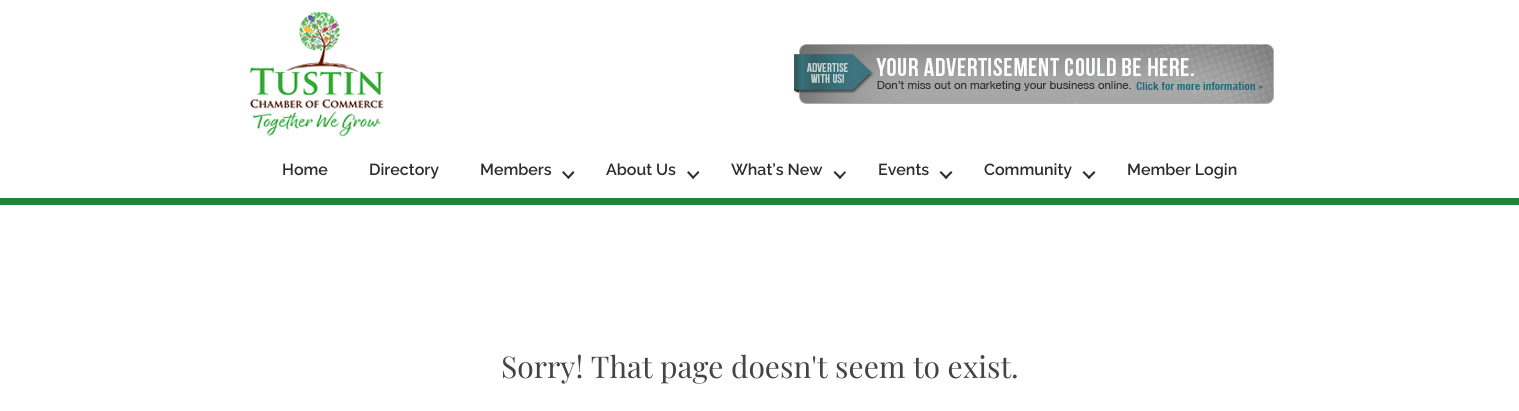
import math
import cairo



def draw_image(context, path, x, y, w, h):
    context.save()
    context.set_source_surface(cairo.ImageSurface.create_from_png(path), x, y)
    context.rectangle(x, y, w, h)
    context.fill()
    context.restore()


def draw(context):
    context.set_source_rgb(1, 1, 1)
    context.paint()
    draw_image(context, "images/1.png", 249, 11, 135, 126)
    draw_image(context, "images/2.png", 794, 44, 480, 60)
    context.set_source_rgb(33 / 255, 130 / 255, 57 / 255)
    context.rectangle(0, 198, 1519, 7)
    context.fill()
    context.set_source_rgb(45 / 255, 45 / 255, 45 / 255)
    context.new_path()
    context.move_to(573, 171)
    context.line_to(574.5, 172.5)
    context.line_to(568.5, 179)
    context.line_to(567, 177.5)
    context.close_path()
    context.fill()
    context.new_path()
    context.move_to(563.5, 171)
    context.line_to(569.5, 177.5)
    context.line_to(568.5, 179)
    context.line_to(562, 172.5)
    context.close_path()
    context.fill()
    context.new_path()
    context.move_to(698, 171)
    context.line_to(699.5, 172.5)
    context.line_to(693, 179)
    context.line_to(692, 177.5)
    context.close_path()
    context.fill()
    context.new_path()
    context.move_to(688.5, 171)
    context.line_to(694.5, 177.5)
    context.line_to(693, 179)
    context.line_to(687, 172.5)
    context.close_path()
    context.fill()
    context.new_path()
    context.move_to(845, 171)
    context.line_to(846, 172.5)
    context.line_to(840, 179)
    context.line_to(838.5, 177.5)
    context.close_path()
    context.fill()
    context.new_path()
    context.move_to(835, 171)
    context.line_to(841.5, 177.5)
    context.line_to(840, 179)
    context.line_to(833.5, 172.5)
    context.close_path()
    context.fill()
    context.new_path()
    context.move_to(951, 171)
    context.line_to(952.5, 172.5)
    context.line_to(946, 179)
    context.line_to(944.5, 177.5)
    context.close_path()
    context.fill()
    context.new_path()
    context.move_to(941, 171)
    context.line_to(947.5, 177.5)
    context.line_to(946, 179)
    context.line_to(939.5, 172.5)
    context.close_path()
    context.fill()
    context.new_path()
    context.move_to(1094, 171)
    context.line_to(1095.5, 172.5)
    context.line_to(1089, 179)
    context.line_to(1087.5, 177.5)
    context.close_path()
    context.fill()
    context.new_path()
    context.move_to(1084, 171)
    context.line_to(1090.5, 177.5)
    context.line_to(1089, 179)
    context.line_to(1082.5, 172.5)
    context.close_path()
    context.fill()
    context.select_font_face("Raleway Thin")
    context.set_font_size(16)
    context.move_to(282, 175)
    context.show_text("Home")
    context.move_to(369, 175)
    context.show_text("Directory")
    context.move_to(480, 175)
    context.show_text("Members")
    context.move_to(606, 175)
    context.show_text("About Us")
    context.move_to(731, 175)
    context.show_text("What’s New")
    context.move_to(878, 175)
    context.show_text("Events")
    context.move_to(984, 175)
    context.show_text("Community")
    context.move_to(1127, 175)
    context.show_text("Member Login")
    context.select_font_face("Playfair Display")
    context.set_font_size(30)
    context.set_source_rgb(68 / 255, 68 / 255, 68 / 255)
    context.move_to(501, 378)
    context.show_text("Sorry! That page doesn't seem to exist.")


surface = cairo.ImageSurface(cairo.Format.RGB24, 1519, 411)
context = cairo.Context(surface)
options = cairo.FontOptions()
options.set_hint_metrics(cairo.HintMetrics.OFF)
options.set_hint_style(cairo.HintStyle.NONE)
context.set_font_options(options)
context.set_miter_limit(4)
draw(context)
surface.write_to_png("out.png")
